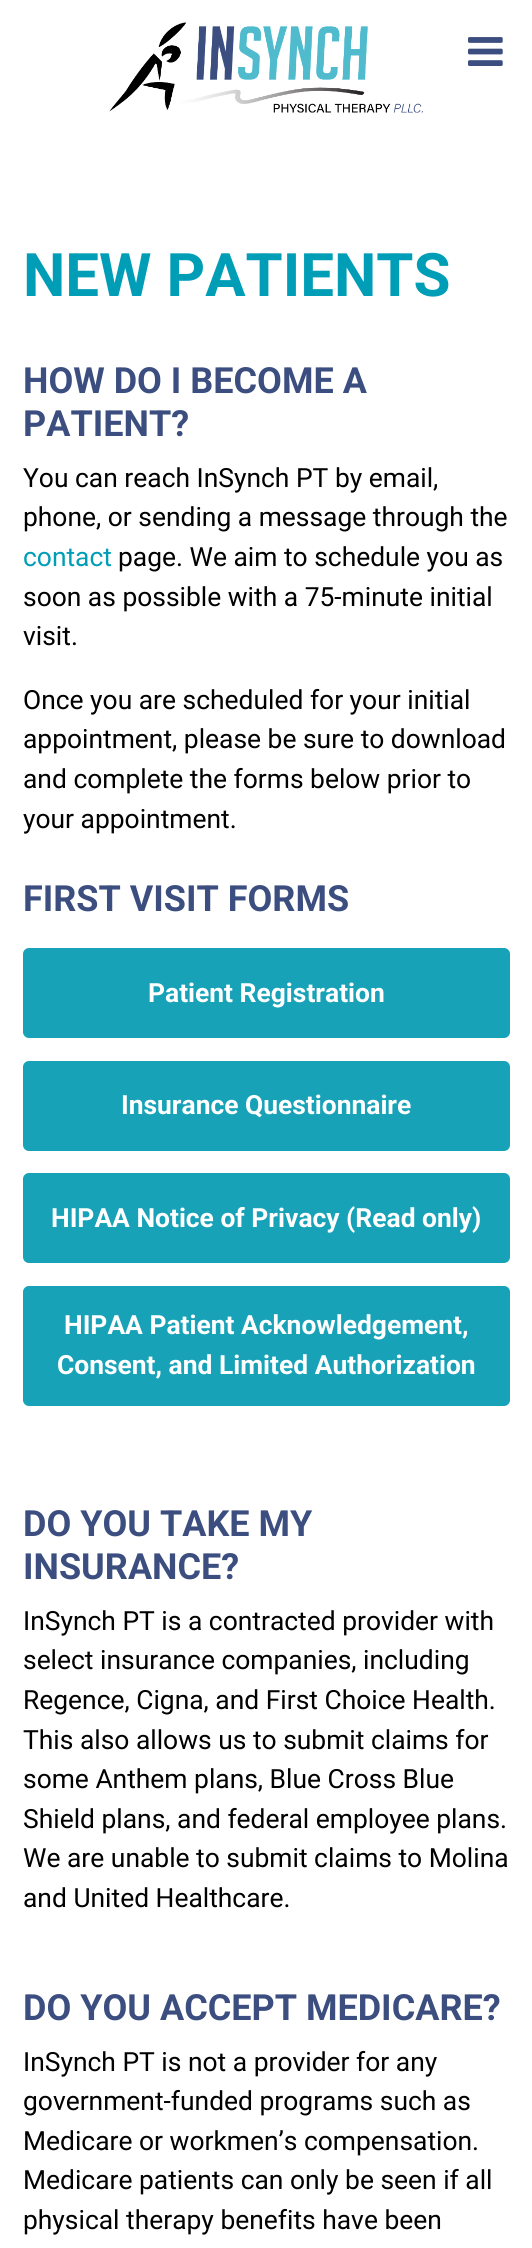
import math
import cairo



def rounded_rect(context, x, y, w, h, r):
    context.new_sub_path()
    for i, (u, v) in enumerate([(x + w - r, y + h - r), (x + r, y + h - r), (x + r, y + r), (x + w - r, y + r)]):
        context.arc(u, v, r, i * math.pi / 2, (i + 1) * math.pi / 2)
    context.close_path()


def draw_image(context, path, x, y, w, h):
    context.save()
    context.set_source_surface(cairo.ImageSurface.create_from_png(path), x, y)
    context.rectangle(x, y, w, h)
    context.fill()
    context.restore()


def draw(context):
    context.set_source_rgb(1, 1, 1)
    context.paint()
    draw_image(context, "images/1.png", 109, 22, 314, 91)
    draw_image(context, "images/2.png", 468, 37, 35, 29)
    context.set_source_rgb(23 / 255, 162 / 255, 184 / 255)
    rounded_rect(context, 24, 949, 485, 88, 5)
    context.fill_preserve()
    context.stroke()
    rounded_rect(context, 24, 1062, 485, 88, 5)
    context.fill_preserve()
    context.stroke()
    rounded_rect(context, 24, 1174, 485, 88, 5)
    context.fill_preserve()
    context.stroke()
    rounded_rect(context, 24, 1287, 485, 118, 5)
    context.fill_preserve()
    context.stroke()
    context.select_font_face("Roboto", cairo.FontSlant.NORMAL, cairo.FontWeight.BOLD)
    context.set_font_size(60)
    context.set_source_rgb(0, 157 / 255, 183 / 255)
    context.move_to(23, 296)
    context.show_text("NEW PATIENTS")
    context.set_font_size(36)
    context.set_source_rgb(59 / 255, 78 / 255, 127 / 255)
    context.move_to(23, 393)
    context.show_text("HOW DO I BECOME A")
    context.move_to(23, 436)
    context.show_text("PATIENT?")
    context.select_font_face("Roboto")
    context.set_font_size(26.4)
    context.set_source_rgb(0, 0, 0)
    context.move_to(23, 487)
    context.show_text("You can reach InSynch PT by email,")
    context.move_to(23, 526)
    context.show_text("phone, or sending a message through the")
    context.set_source_rgb(0, 157 / 255, 183 / 255)
    context.move_to(23, 566)
    context.show_text("contact")
    context.set_source_rgb(0, 0, 0)
    context.move_to(118, 566)
    context.show_text("page. We aim to schedule you as")
    context.move_to(23, 606)
    context.show_text("soon as possible with a 75-minute initial")
    context.move_to(23, 645)
    context.show_text("visit.")
    context.move_to(23, 709)
    context.show_text("Once you are scheduled for your initial")
    context.move_to(23, 748)
    context.show_text("appointment, please be sure to download")
    context.move_to(23, 788)
    context.show_text("and complete the forms below prior to")
    context.move_to(23, 828)
    context.show_text("your appointment.")
    context.select_font_face("Roboto", cairo.FontSlant.NORMAL, cairo.FontWeight.BOLD)
    context.set_font_size(36)
    context.set_source_rgb(59 / 255, 78 / 255, 127 / 255)
    context.move_to(23, 911)
    context.show_text("FIRST VISIT FORMS")
    context.set_font_size(26.4)
    context.set_source_rgb(1, 1, 1)
    context.move_to(148, 1002)
    context.show_text("Patient Registration")
    context.move_to(121, 1114)
    context.show_text("Insurance Questionnaire")
    context.move_to(51, 1227)
    context.show_text("HIPAA Notice of Privacy (Read only)")
    context.move_to(64, 1334)
    context.show_text("HIPAA Patient Acknowledgement,")
    context.move_to(57, 1374)
    context.show_text("Consent, and Limited Authorization")
    context.set_font_size(36)
    context.set_source_rgb(59 / 255, 78 / 255, 127 / 255)
    context.move_to(23, 1536)
    context.show_text("DO YOU TAKE MY")
    context.move_to(23, 1579)
    context.show_text("INSURANCE?")
    context.select_font_face("Roboto")
    context.set_font_size(26.4)
    context.set_source_rgb(0, 0, 0)
    context.move_to(23, 1630)
    context.show_text("InSynch PT is a contracted provider with")
    context.move_to(23, 1669)
    context.show_text("select insurance companies, including")
    context.move_to(23, 1709)
    context.show_text("Regence, Cigna, and First Choice Health.")
    context.move_to(23, 1749)
    context.show_text("This also allows us to submit claims for")
    context.move_to(23, 1788)
    context.show_text("some Anthem plans, Blue Cross Blue")
    context.move_to(23, 1828)
    context.show_text("Shield plans, and federal employee plans.")
    context.move_to(23, 1867)
    context.show_text("We are unable to submit claims to Molina")
    context.move_to(23, 1907)
    context.show_text("and United Healthcare.")
    context.select_font_face("Roboto", cairo.FontSlant.NORMAL, cairo.FontWeight.BOLD)
    context.set_font_size(36)
    context.set_source_rgb(59 / 255, 78 / 255, 127 / 255)
    context.move_to(23, 2020)
    context.show_text("DO YOU ACCEPT MEDICARE?")
    context.select_font_face("Roboto")
    context.set_font_size(26.4)
    context.set_source_rgb(0, 0, 0)
    context.move_to(23, 2071)
    context.show_text("InSynch PT is not a provider for any")
    context.move_to(23, 2110)
    context.show_text("government-funded programs such as")
    context.move_to(23, 2150)
    context.show_text("Medicare or workmen’s compensation.")
    context.move_to(23, 2189)
    context.show_text("Medicare patients can only be seen if all")
    context.move_to(23, 2229)
    context.show_text("physical therapy benefits have been")


surface = cairo.ImageSurface(cairo.Format.RGB24, 532, 2248)
context = cairo.Context(surface)
options = cairo.FontOptions()
options.set_hint_metrics(cairo.HintMetrics.OFF)
options.set_hint_style(cairo.HintStyle.NONE)
context.set_font_options(options)
context.set_miter_limit(4)
draw(context)
surface.write_to_png("out.png")
